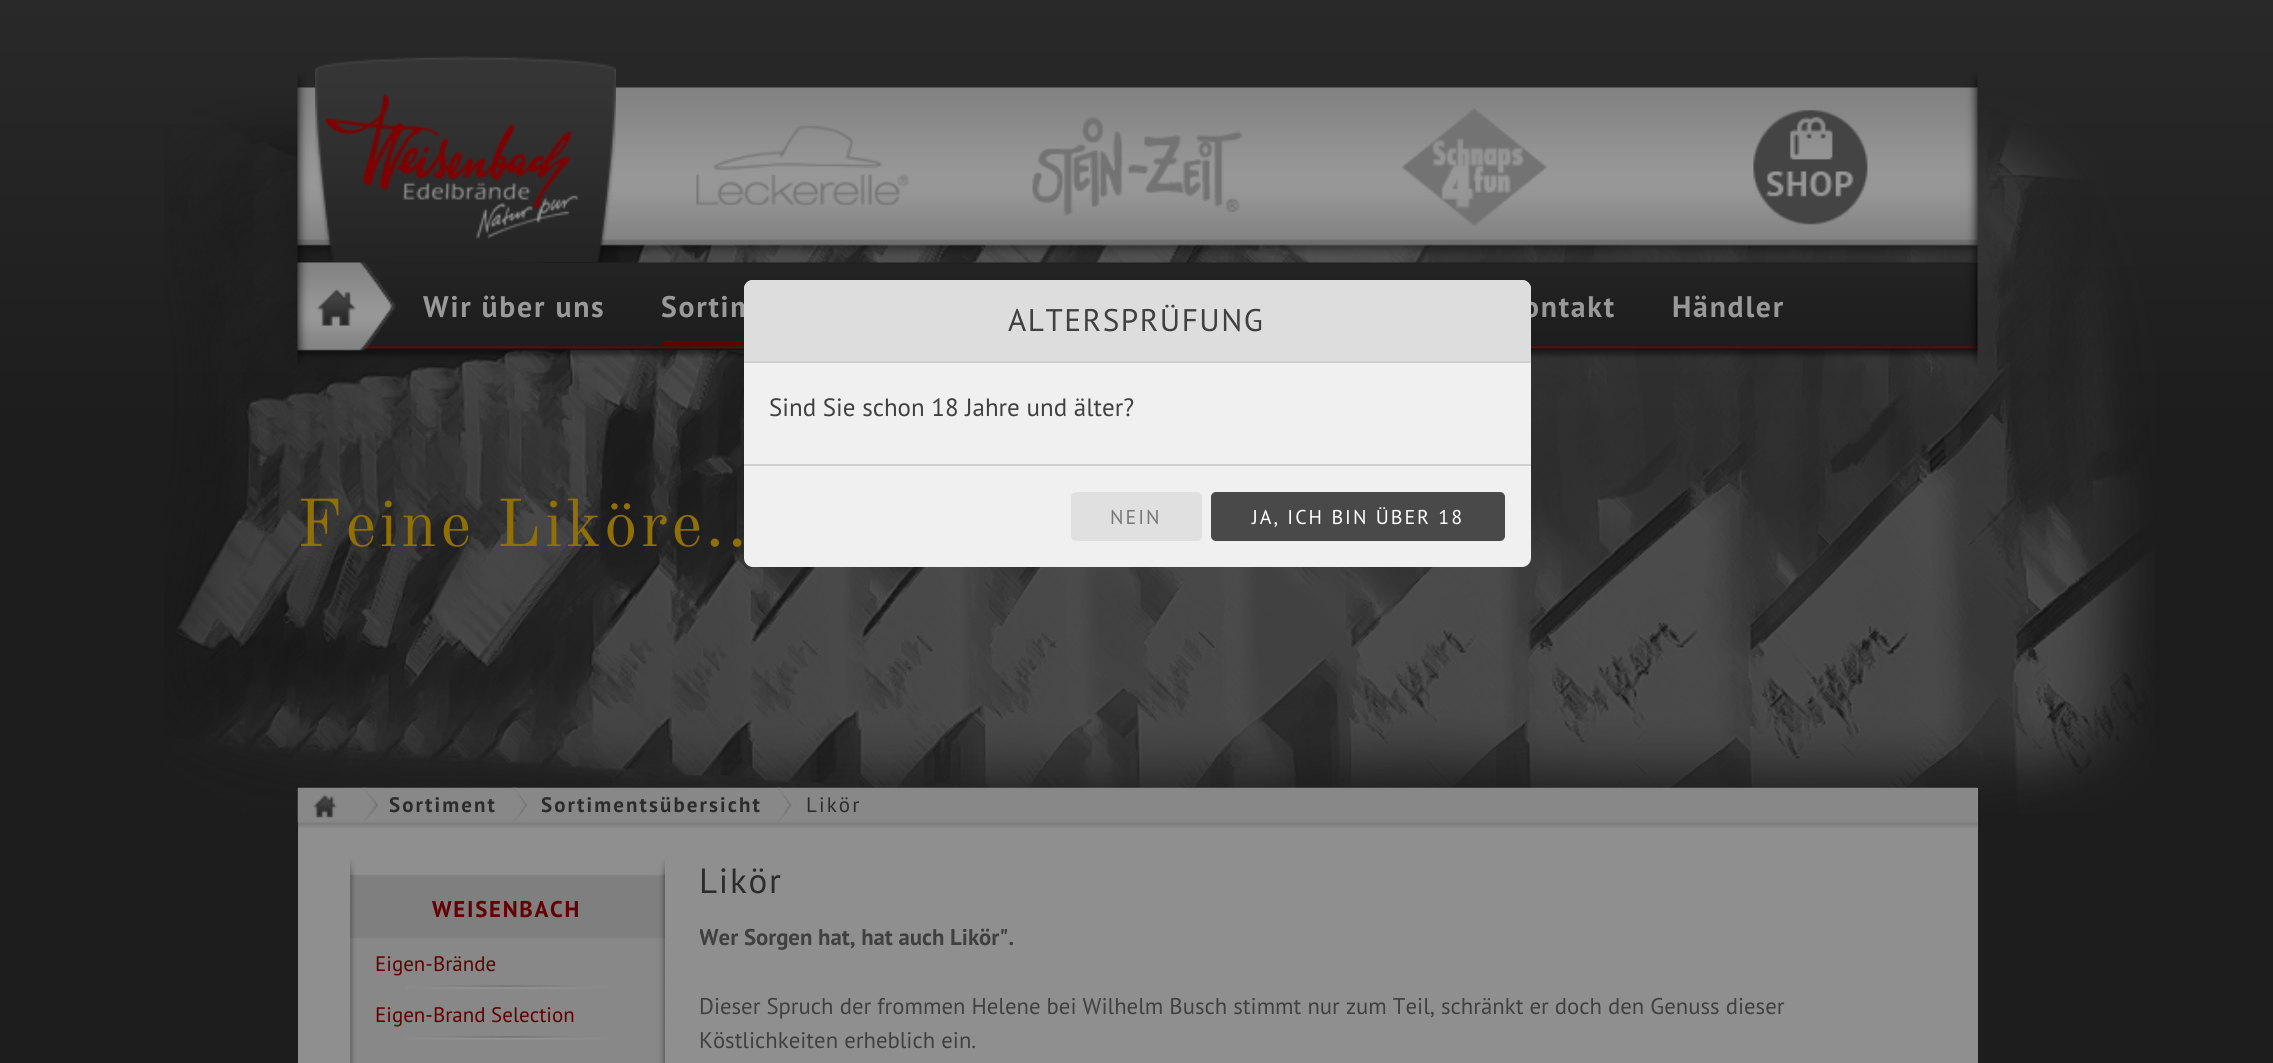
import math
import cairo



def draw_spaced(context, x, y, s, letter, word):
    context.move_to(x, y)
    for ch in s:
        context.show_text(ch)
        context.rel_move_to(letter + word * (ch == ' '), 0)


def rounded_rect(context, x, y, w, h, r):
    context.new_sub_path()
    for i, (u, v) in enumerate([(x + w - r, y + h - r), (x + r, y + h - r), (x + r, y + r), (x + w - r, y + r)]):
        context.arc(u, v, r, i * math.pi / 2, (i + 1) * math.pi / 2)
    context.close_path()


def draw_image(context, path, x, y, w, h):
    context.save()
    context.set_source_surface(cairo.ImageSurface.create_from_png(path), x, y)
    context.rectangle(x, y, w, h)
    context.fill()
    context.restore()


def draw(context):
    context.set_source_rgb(1, 1, 1)
    context.paint()
    gradient = cairo.LinearGradient(1137, 0, 1137, 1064)
    gradient.add_color_stop_rgba(0, 41 / 255, 41 / 255, 41 / 255, 1)
    gradient.add_color_stop_rgba(0.4, 29 / 255, 29 / 255, 29 / 255, 1)
    context.set_source(gradient)
    context.rectangle(0, 0, 2273, 1063)
    context.fill()
    draw_image(context, "images/1.png", 164, 97, 1991, 716)
    draw_image(context, "images/2.png", 297, 72, 1681, 191)
    draw_image(context, "images/3.png", 315, 56, 301, 207)
    draw_image(context, "images/4.png", 325, 94, 253, 145)
    draw_image(context, "images/5.png", 696, 125, 213, 81)
    draw_image(context, "images/6.png", 1032, 117, 211, 99)
    draw_image(context, "images/7.png", 1401, 108, 147, 119)
    draw_image(context, "images/8.png", 1753, 109, 115, 116)
    draw_image(context, "images/9.png", 297, 262, 1681, 104)
    context.set_source_rgb(98 / 255, 0, 2 / 255)
    context.rectangle(662, 341, 82, 5)
    context.fill()
    context.set_source_rgb(143 / 255, 143 / 255, 143 / 255)
    context.rectangle(298, 788, 1680, 275)
    context.fill()
    draw_image(context, "images/10.png", 297, 787, 1681, 41)
    draw_image(context, "images/11.png", 313, 794, 24, 24)
    draw_image(context, "images/12.png", 362, 787, 18, 35)
    draw_image(context, "images/13.png", 512, 787, 15, 35)
    draw_image(context, "images/14.png", 777, 787, 16, 35)
    draw_image(context, "images/15.png", 350, 859, 315, 18)
    context.set_source_rgb(136 / 255, 136 / 255, 136 / 255)
    context.rectangle(350, 938, 315, 125)
    context.fill()
    draw_image(context, "images/16.png", 350, 876, 315, 187)
    context.set_source_rgb(127 / 255, 127 / 255, 127 / 255)
    context.rectangle(350, 877, 315, 61)
    context.fill()
    draw_image(context, "images/17.png", 350, 876, 315, 62)
    draw_image(context, "images/18.png", 405, 985, 203, 4)
    draw_image(context, "images/19.png", 405, 1036, 203, 4)
    context.select_font_face("PT Sans", cairo.FontSlant.NORMAL, cairo.FontWeight.BOLD)
    context.set_font_size(29.75)
    context.set_source_rgb(153 / 255, 153 / 255, 153 / 255)
    draw_spaced(context, 423, 317, "Wir über uns", 1.75, 0)
    draw_spaced(context, 661, 317, "Sortim", 1.75, 0)
    draw_spaced(context, 1523, 317, "ontakt", 1.75, 0)
    draw_spaced(context, 1672, 317, "Händler", 1.75, 0)
    context.select_font_face("Old Standard TT")
    context.set_font_size(66.5)
    context.set_source_rgb(144 / 255, 112 / 255, 6 / 255)
    draw_spaced(context, 297, 546, "Feine Liköre..", 3.5, 0)
    context.select_font_face("PT Sans", cairo.FontSlant.NORMAL, cairo.FontWeight.BOLD)
    context.set_font_size(21)
    context.set_source_rgb(44 / 255, 44 / 255, 44 / 255)
    draw_spaced(context, 389, 812, "Sortiment", 2.1, 0)
    draw_spaced(context, 541, 812, "Sortimentsübersicht", 2.1, 0)
    context.select_font_face("PT Sans")
    draw_spaced(context, 806, 812, "Likör", 2.1, 0)
    context.set_font_size(35)
    draw_spaced(context, 699, 893, "Likör", 1.75, 0)
    context.save()
    context.rectangle(700, 858, 1225, 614)
    context.clip()
    context.select_font_face("PT Sans", cairo.FontSlant.NORMAL, cairo.FontWeight.BOLD)
    context.set_font_size(22.75)
    context.set_source_rgb(64 / 255, 64 / 255, 64 / 255)
    context.move_to(699, 945)
    context.show_text("Wer Sorgen hat, hat auch Likör\".")
    context.restore()
    context.set_font_size(22.75)
    context.set_source_rgb(64 / 255, 64 / 255, 64 / 255)
    context.move_to(699, 1014)
    context.show_text("Dieser Spruch der frommen Helene bei Wilhelm Busch stimmt nur zum Teil, schränkt er doch den Genuss dieser")
    context.move_to(699, 1048)
    context.show_text("Köstlichkeiten erheblich ein.")
    context.select_font_face("PT Sans", cairo.FontSlant.NORMAL, cairo.FontWeight.BOLD)
    context.set_source_rgb(98 / 255, 0, 2 / 255)
    draw_spaced(context, 432, 917, "WEISENBACH", 1.75, 0)
    context.select_font_face("PT Sans")
    context.set_font_size(21)
    context.move_to(375, 971)
    context.show_text("Eigen-Brände")
    context.move_to(375, 1022)
    context.show_text("Eigen-Brand Selection")
    context.set_source_rgb(240 / 255, 240 / 255, 240 / 255)
    rounded_rect(context, 744, 280, 787, 287, 9)
    context.fill()
    context.set_source_rgb(221 / 255, 221 / 255, 221 / 255)
    context.new_path()
    context.move_to(753, 280)
    context.line_to(1522, 280)
    context.curve_to(1527, 280, 1531, 284, 1531, 289)
    context.line_to(1531, 362)
    context.line_to(744, 362)
    context.line_to(744, 289)
    context.curve_to(744, 284, 748, 280, 753, 280)
    context.close_path()
    context.fill()
    context.set_source_rgb(208 / 255, 208 / 255, 208 / 255)
    context.rectangle(744, 361, 787, 2)
    context.fill()
    context.set_font_size(31.25)
    context.set_source_rgb(64 / 255, 64 / 255, 64 / 255)
    draw_spaced(context, 1008, 331, "ALTERSPRÜFUNG", 1.5, 0)
    context.set_font_size(25)
    context.move_to(769, 416)
    context.show_text("Sind Sie schon 18 Jahre und älter?")
    context.set_source_rgb(208 / 255, 208 / 255, 208 / 255)
    context.rectangle(744, 464, 787, 2)
    context.fill()
    context.set_source_rgb(224 / 255, 224 / 255, 224 / 255)
    rounded_rect(context, 1071, 492, 131, 49, 5)
    context.fill()
    context.set_font_size(20)
    context.set_source_rgb(119 / 255, 119 / 255, 119 / 255)
    draw_spaced(context, 1110, 524, "NEIN", 2, 0)
    context.set_source_rgb(73 / 255, 73 / 255, 73 / 255)
    rounded_rect(context, 1211, 492, 294, 49, 5)
    context.fill()
    context.set_source_rgb(1, 1, 1)
    draw_spaced(context, 1252, 524, "JA, ICH BIN ÜBER 18", 2, 0)


surface = cairo.ImageSurface(cairo.Format.RGB24, 2273, 1063)
context = cairo.Context(surface)
options = cairo.FontOptions()
options.set_hint_metrics(cairo.HintMetrics.OFF)
options.set_hint_style(cairo.HintStyle.NONE)
context.set_font_options(options)
context.set_miter_limit(4)
draw(context)
surface.write_to_png("out.png")
